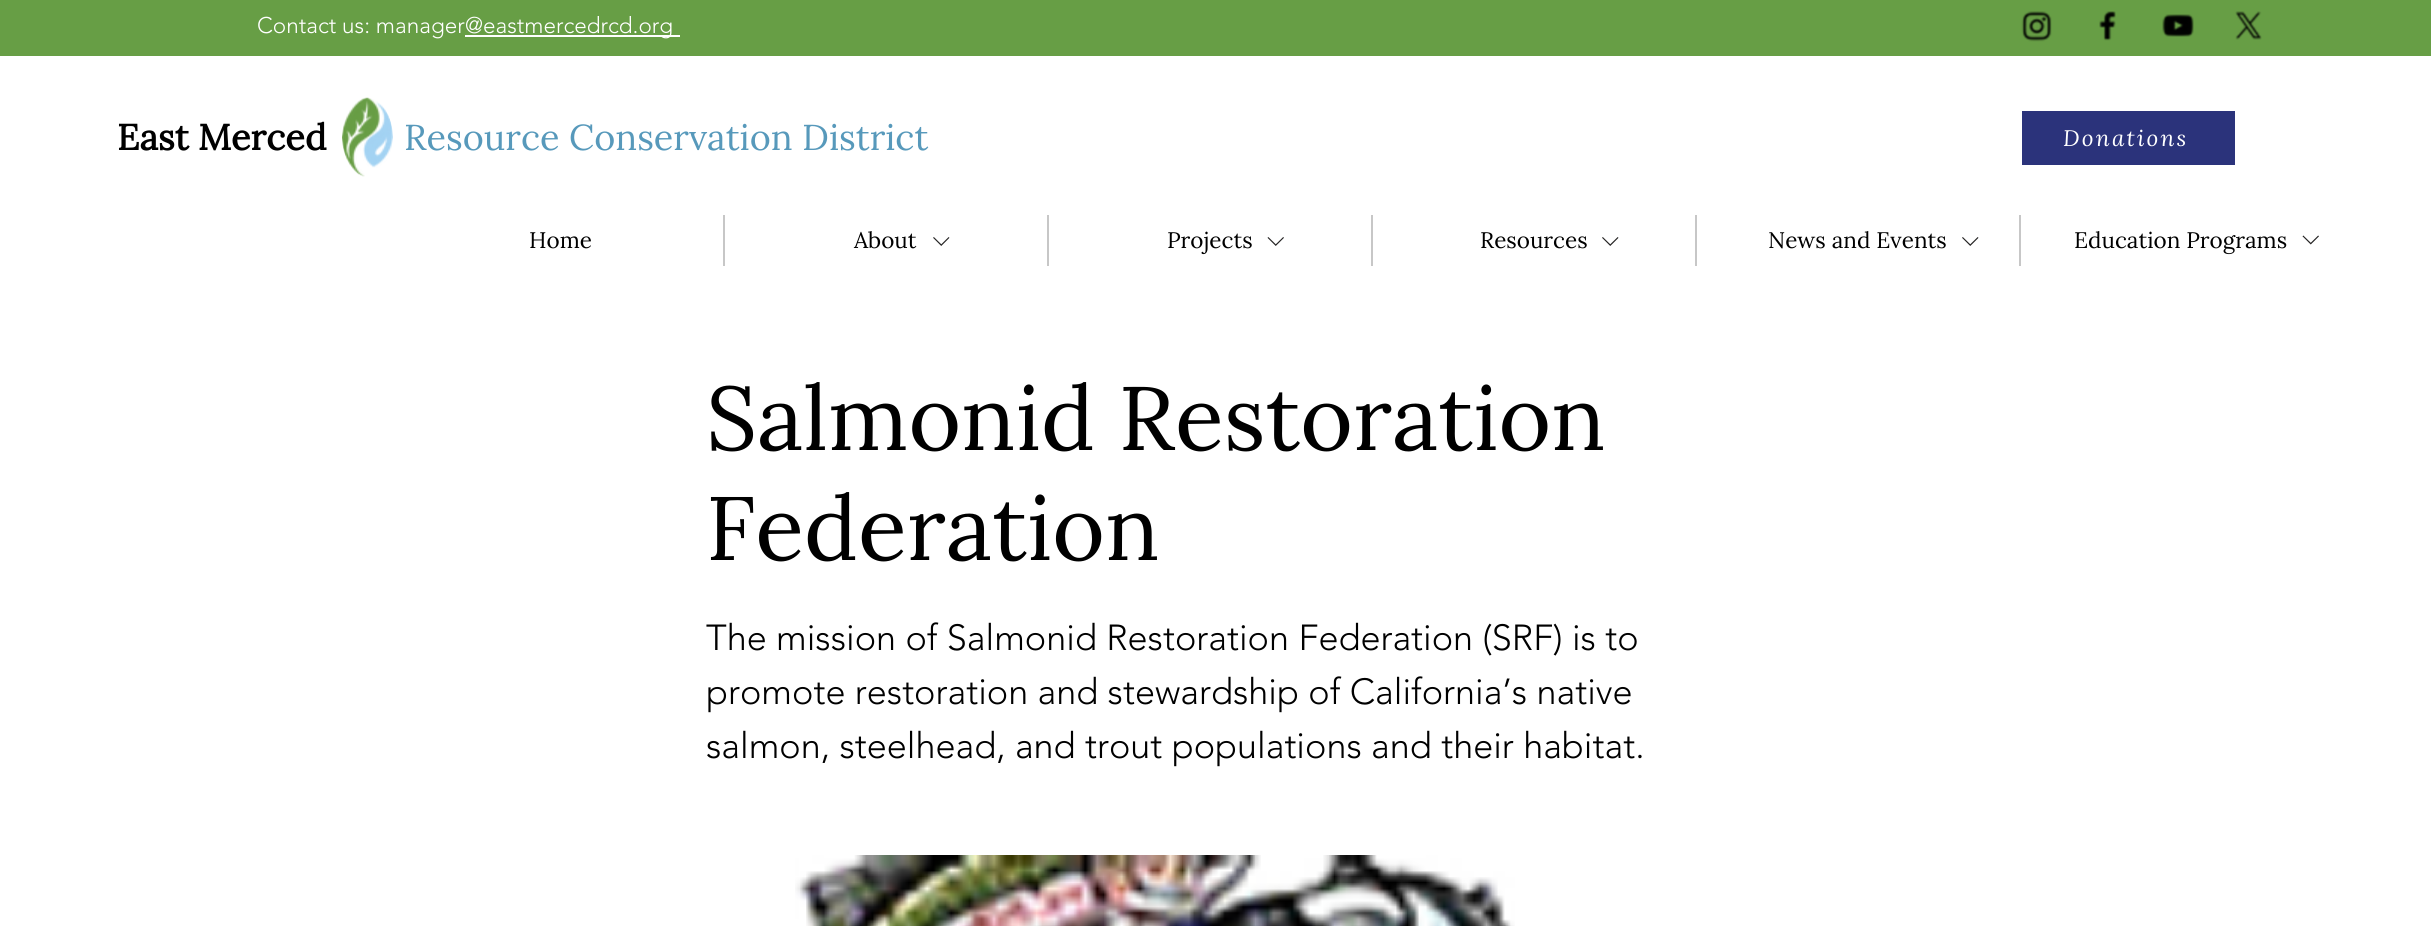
import math
import cairo



def draw_spaced(context, x, y, s, letter, word):
    context.move_to(x, y)
    for ch in s:
        context.show_text(ch)
        context.rel_move_to(letter + word * (ch == ' '), 0)


def draw_image(context, path, x, y, w, h):
    context.save()
    context.set_source_surface(cairo.ImageSurface.create_from_png(path), x, y)
    context.rectangle(x, y, w, h)
    context.fill()
    context.restore()


def draw(context):
    context.set_source_rgb(1, 1, 1)
    context.paint()
    context.set_source_rgb(103 / 255, 158 / 255, 69 / 255)
    context.rectangle(0, 0, 2431, 56)
    context.fill()
    context.set_source_rgb(1, 1, 1)
    context.rectangle(465, 35, 215, 2)
    context.fill()
    draw_image(context, "images/1.png", 2021, 11, 31, 31)
    draw_image(context, "images/2.png", 2099, 11, 17, 30)
    draw_image(context, "images/3.png", 2162, 14, 32, 23)
    draw_image(context, "images/4.png", 2235, 11, 27, 29)
    draw_image(context, "images/5.png", 342, 97, 51, 80)
    context.set_source_rgb(43 / 255, 51 / 255, 123 / 255)
    context.rectangle(2022, 111, 213, 54)
    context.fill()
    context.set_source_rgb(199 / 255, 199 / 255, 199 / 255)
    context.rectangle(723, 215, 2, 51)
    context.fill()
    context.rectangle(1047, 215, 2, 51)
    context.fill()
    context.rectangle(1371, 215, 2, 51)
    context.fill()
    context.rectangle(1695, 215, 2, 51)
    context.fill()
    context.rectangle(2019, 215, 2, 51)
    context.fill()
    draw_image(context, "images/6.png", 933, 237, 17, 9)
    draw_image(context, "images/7.png", 2302, 235, 17, 10)
    draw_image(context, "images/8.png", 1267, 237, 17, 9)
    draw_image(context, "images/9.png", 1602, 237, 17, 9)
    draw_image(context, "images/9.png", 1962, 237, 17, 9)
    draw_image(context, "images/10.png", 795, 855, 720, 71)
    context.select_font_face("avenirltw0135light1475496 Light")
    context.set_font_size(22.5)
    context.set_source_rgb(1, 1, 1)
    context.move_to(257, 33)
    context.show_text("Contact us: manager")
    context.move_to(465, 33)
    context.show_text("@eastmercedrcd.org")
    context.select_font_face("Lora", cairo.FontSlant.NORMAL, cairo.FontWeight.BOLD)
    context.set_font_size(36)
    context.set_source_rgb(0, 0, 0)
    context.move_to(117, 150)
    context.show_text("East Merced")
    context.select_font_face("Lora")
    context.set_source_rgb(87 / 255, 153 / 255, 187 / 255)
    context.move_to(404, 150)
    context.show_text("Resource Conservation District")
    context.select_font_face("Lora", cairo.FontSlant.ITALIC)
    context.set_font_size(22.5)
    context.set_source_rgb(1, 1, 1)
    draw_spaced(context, 2063, 146, "Donations", 2.25, 0)
    context.select_font_face("Lora")
    context.set_source_rgb(0, 0, 0)
    context.move_to(529, 248)
    context.show_text("Home")
    context.move_to(854, 248)
    context.show_text("About")
    context.move_to(1167, 248)
    context.show_text("Projects")
    context.move_to(1480, 248)
    context.show_text("Resources")
    context.move_to(1768, 248)
    context.show_text("News and Events")
    context.move_to(2074, 248)
    context.show_text("Education Programs")
    context.set_font_size(90)
    context.move_to(706, 450)
    context.show_text("Salmonid Restoration")
    context.move_to(706, 560)
    context.show_text("Federation")
    context.select_font_face("avenirltw0135light1475496 Light")
    context.set_font_size(36)
    context.move_to(706, 650)
    context.show_text("The mission of Salmonid Restoration Federation (SRF) is to")
    context.move_to(706, 704)
    context.show_text("promote restoration and stewardship of California’s native")
    context.move_to(706, 758)
    context.show_text("salmon, steelhead, and trout populations and their habitat.")


surface = cairo.ImageSurface(cairo.Format.RGB24, 2431, 926)
context = cairo.Context(surface)
options = cairo.FontOptions()
options.set_hint_metrics(cairo.HintMetrics.OFF)
options.set_hint_style(cairo.HintStyle.NONE)
context.set_font_options(options)
context.set_miter_limit(4)
draw(context)
surface.write_to_png("out.png")
